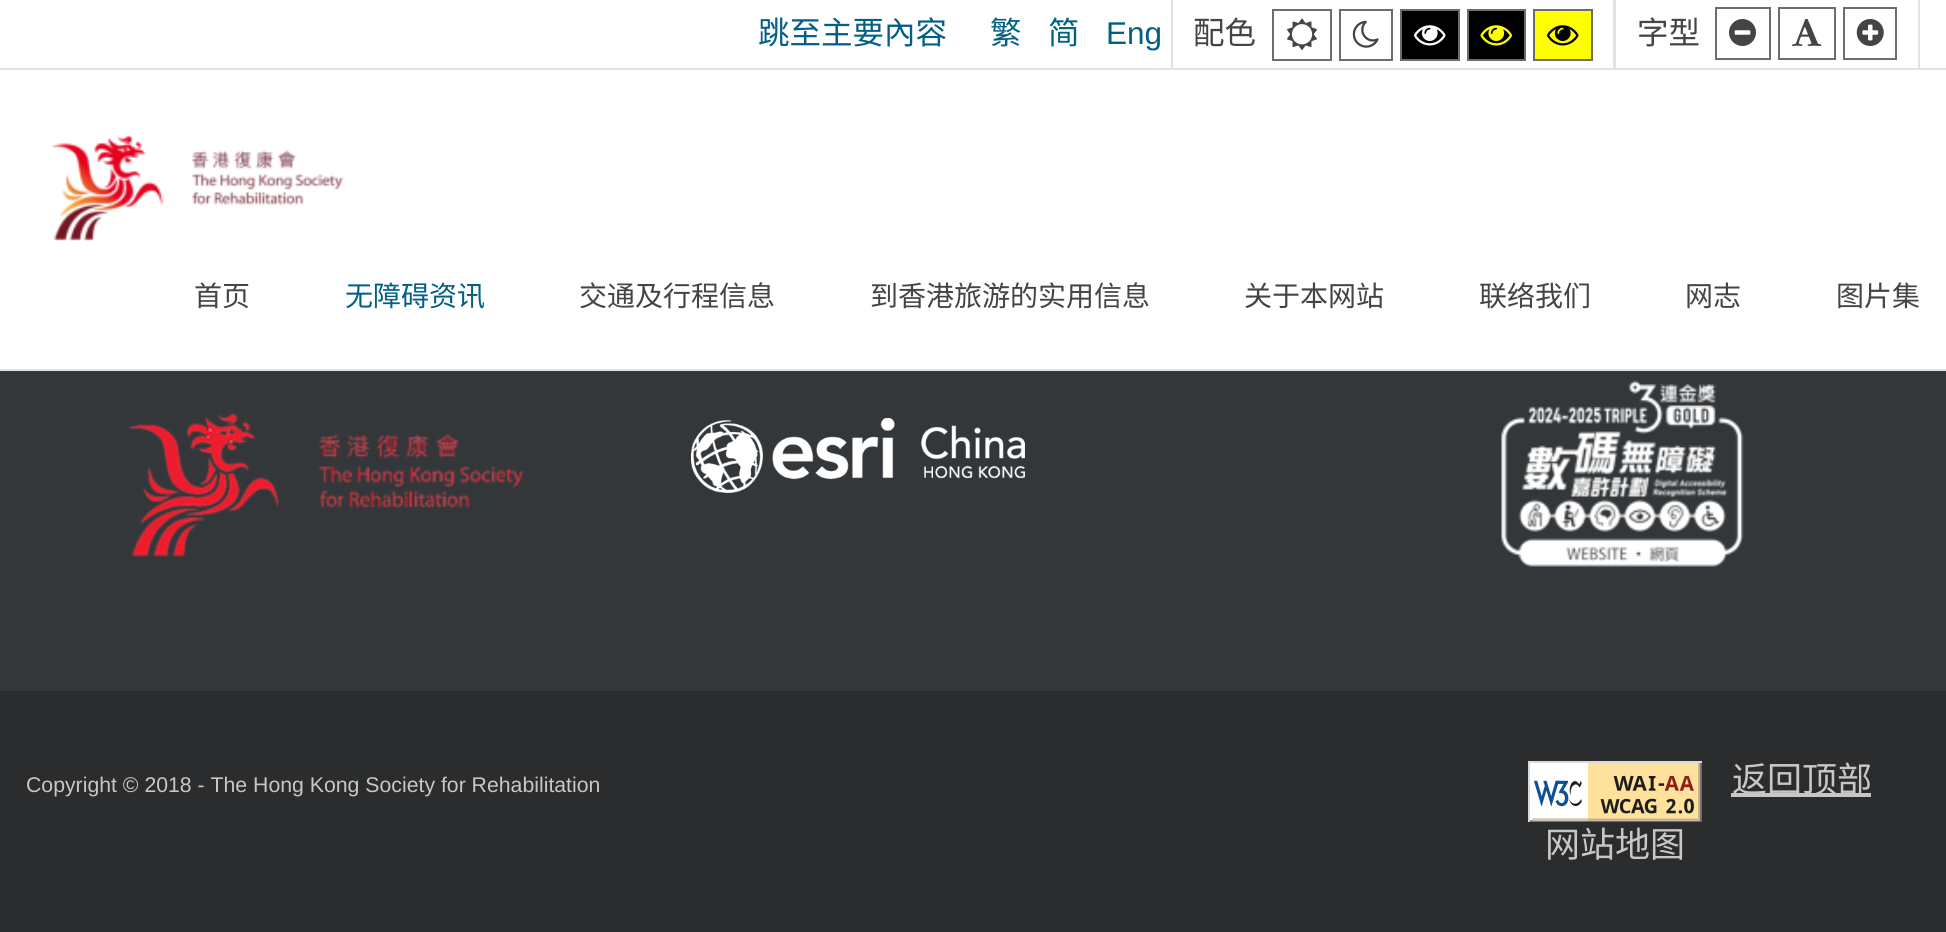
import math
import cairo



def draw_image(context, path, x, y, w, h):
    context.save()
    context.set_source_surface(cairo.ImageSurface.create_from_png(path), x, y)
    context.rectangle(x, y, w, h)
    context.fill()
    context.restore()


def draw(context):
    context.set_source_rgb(52 / 255, 55 / 255, 58 / 255)
    context.paint()
    context.set_source_rgb(226 / 255, 226 / 255, 226 / 255)
    context.rectangle(0, 369, 1946, 2)
    context.fill()
    context.set_source_rgb(1, 1, 1)
    context.rectangle(0, 0, 1946, 68)
    context.fill()
    context.set_source_rgb(226 / 255, 226 / 255, 226 / 255)
    context.rectangle(0, 68, 1946, 2)
    context.fill()
    context.rectangle(1172, -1, 442, 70)
    context.stroke()
    context.rectangle(1273, 10, 58, 50)
    context.set_source_rgb(109 / 255, 109 / 255, 109 / 255)
    context.stroke()
    draw_image(context, "images/1.png", 1287, 18, 30, 32)
    context.rectangle(1340, 10, 52, 50)
    context.stroke()
    draw_image(context, "images/2.png", 1352, 20, 27, 28)
    context.set_source_rgb(0, 0, 0)
    context.rectangle(1401, 10, 58, 50)
    context.fill_preserve()
    context.set_source_rgb(109 / 255, 109 / 255, 109 / 255)
    context.stroke()
    draw_image(context, "images/3.png", 1414, 25, 32, 21)
    context.set_source_rgb(0, 0, 0)
    context.rectangle(1468, 10, 57, 50)
    context.fill_preserve()
    context.set_source_rgb(109 / 255, 109 / 255, 109 / 255)
    context.stroke()
    draw_image(context, "images/4.png", 1480, 25, 32, 21)
    context.set_source_rgb(1, 1, 0)
    context.rectangle(1534, 10, 58, 50)
    context.fill_preserve()
    context.set_source_rgb(109 / 255, 109 / 255, 109 / 255)
    context.stroke()
    draw_image(context, "images/5.png", 1547, 25, 32, 21)
    context.rectangle(1615, -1, 304, 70)
    context.set_source_rgb(226 / 255, 226 / 255, 226 / 255)
    context.stroke()
    context.rectangle(1716, 8, 54, 51)
    context.set_source_rgb(109 / 255, 109 / 255, 109 / 255)
    context.stroke()
    draw_image(context, "images/6.png", 1729, 19, 27, 27)
    context.rectangle(1779, 8, 56, 51)
    context.stroke()
    draw_image(context, "images/7.png", 1792, 19, 30, 27)
    context.rectangle(1844, 8, 52, 51)
    context.stroke()
    draw_image(context, "images/8.png", 1856, 19, 28, 27)
    context.set_source_rgb(1, 1, 1)
    context.rectangle(0, 70, 1946, 299)
    context.fill()
    draw_image(context, "images/9.png", 52, 136, 292, 105)
    draw_image(context, "images/10.png", 129, 413, 395, 144)
    draw_image(context, "images/11.png", 691, 418, 334, 75)
    draw_image(context, "images/12.png", 1500, 380, 244, 187)
    context.set_source_rgb(42 / 255, 44 / 255, 46 / 255)
    context.rectangle(0, 691, 1946, 241)
    context.fill()
    context.set_source_rgb(199 / 255, 199 / 255, 199 / 255)
    context.rectangle(1731, 793, 140, 4)
    context.fill()
    draw_image(context, "images/13.png", 1528, 761, 174, 61)
    context.select_font_face("Noto Sans CJK SC")
    context.set_font_size(31.5)
    context.set_source_rgb(3 / 255, 96 / 255, 133 / 255)
    context.move_to(758, 44)
    context.show_text("跳至主要內容")
    context.move_to(990, 44)
    context.show_text("繁")
    context.move_to(1048, 44)
    context.show_text("简")
    context.select_font_face("Liberation Sans")
    context.move_to(1106, 44)
    context.show_text("Eng")
    context.select_font_face("Noto Sans CJK SC")
    context.set_source_rgb(68 / 255, 68 / 255, 68 / 255)
    context.move_to(1193, 44)
    context.show_text("配色")
    context.move_to(1637, 44)
    context.show_text("字型")
    context.set_font_size(28)
    context.move_to(194, 306)
    context.show_text("首页")
    context.set_source_rgb(3 / 255, 96 / 255, 133 / 255)
    context.move_to(345, 306)
    context.show_text("无障碍资讯")
    context.set_source_rgb(68 / 255, 68 / 255, 68 / 255)
    context.move_to(579, 306)
    context.show_text("交通及行程信息")
    context.move_to(870, 306)
    context.show_text("到香港旅游的实用信息")
    context.move_to(1244, 306)
    context.show_text("关于本网站")
    context.move_to(1479, 306)
    context.show_text("联络我们")
    context.move_to(1685, 306)
    context.show_text("网志")
    context.move_to(1836, 306)
    context.show_text("图片集")
    context.select_font_face("Liberation Sans")
    context.set_font_size(21.25)
    context.set_source_rgb(199 / 255, 199 / 255, 199 / 255)
    context.move_to(26, 792)
    context.show_text("Copyright © 2018 - The Hong Kong Society for Rehabilitation")
    context.select_font_face("Noto Sans CJK SC")
    context.set_font_size(35)
    context.move_to(1732, 792)
    context.show_text("返回顶部")
    context.move_to(1545, 857)
    context.show_text("网站地图")


surface = cairo.ImageSurface(cairo.Format.RGB24, 1946, 932)
context = cairo.Context(surface)
options = cairo.FontOptions()
options.set_hint_metrics(cairo.HintMetrics.OFF)
options.set_hint_style(cairo.HintStyle.NONE)
context.set_font_options(options)
context.set_miter_limit(4)
draw(context)
surface.write_to_png("out.png")
